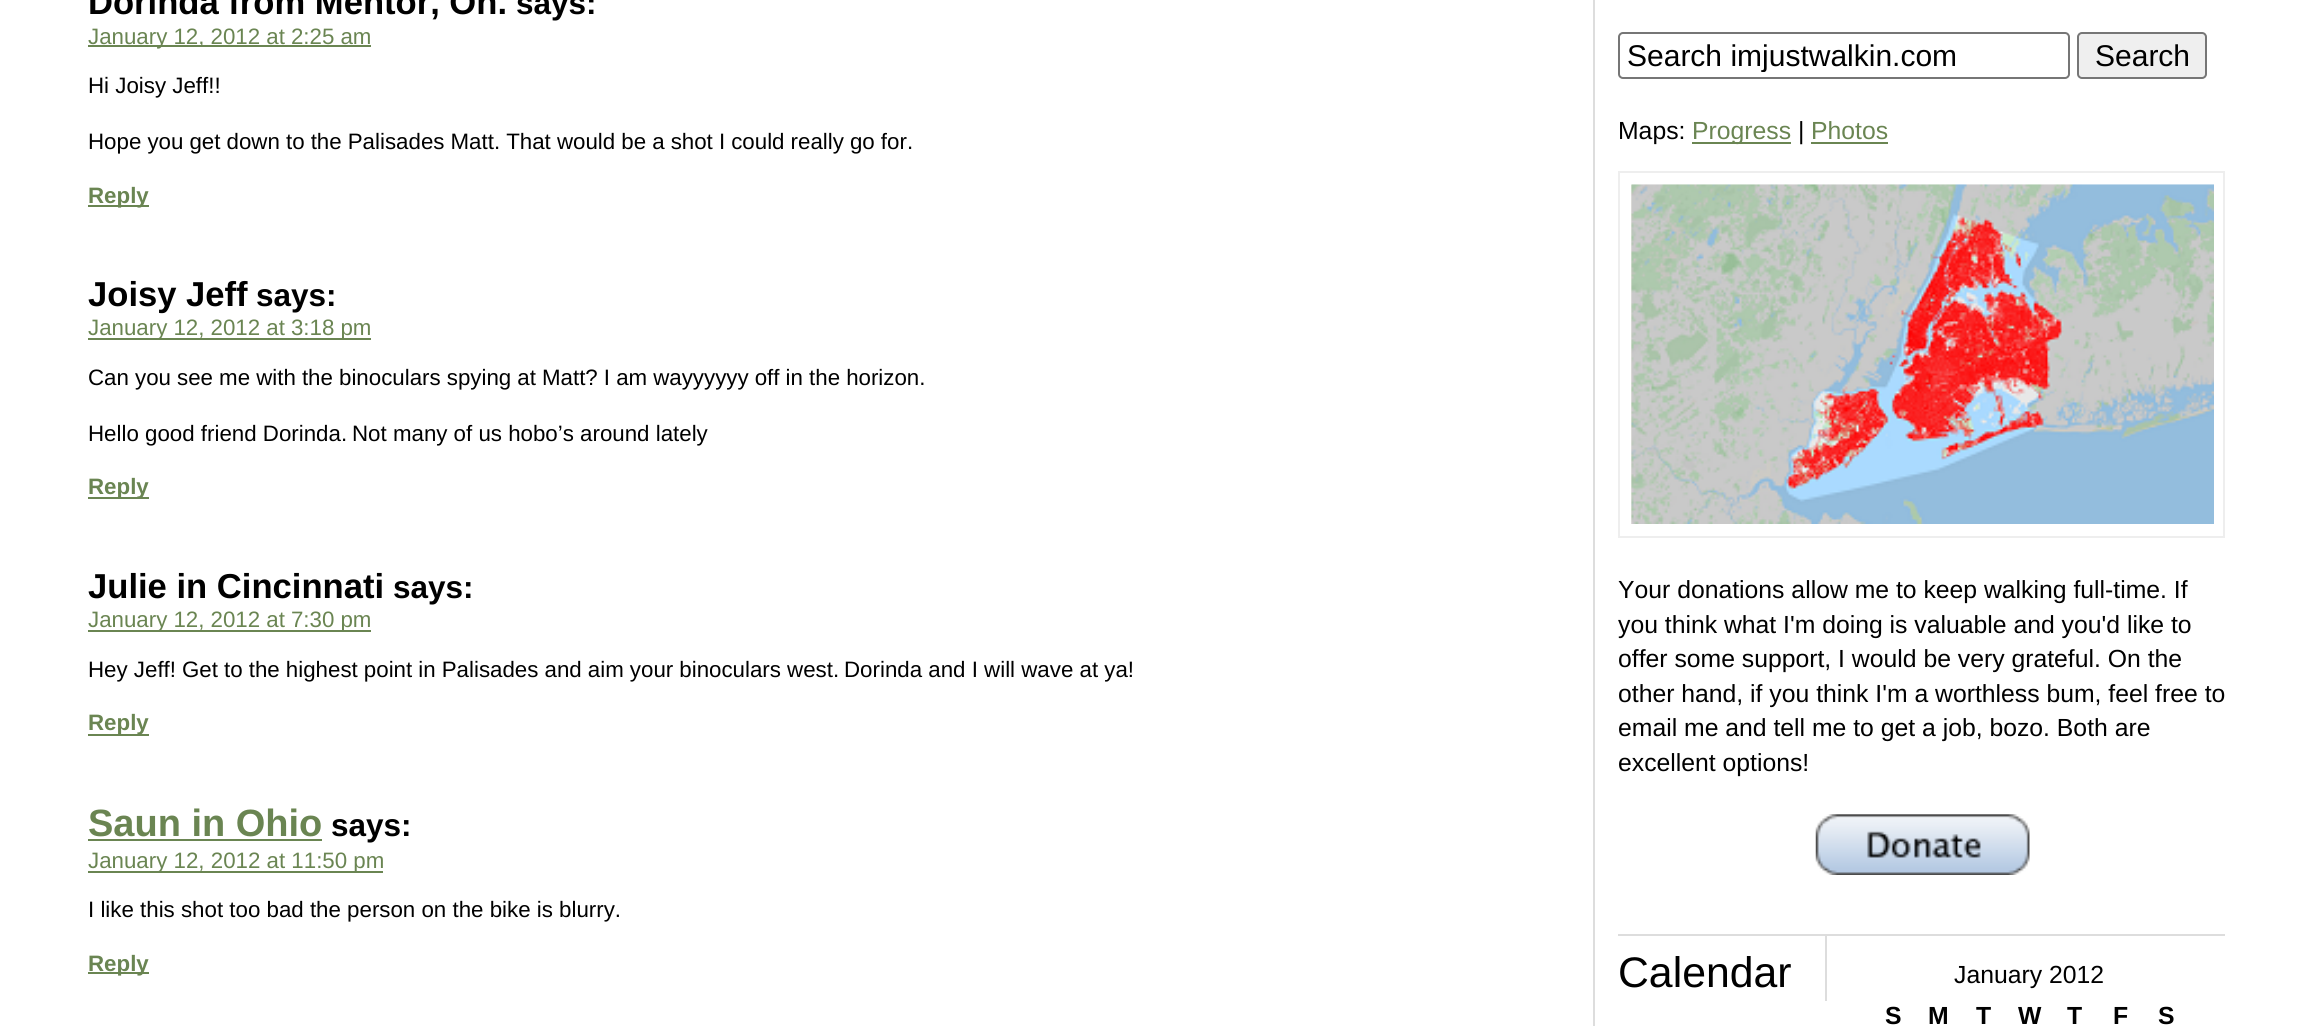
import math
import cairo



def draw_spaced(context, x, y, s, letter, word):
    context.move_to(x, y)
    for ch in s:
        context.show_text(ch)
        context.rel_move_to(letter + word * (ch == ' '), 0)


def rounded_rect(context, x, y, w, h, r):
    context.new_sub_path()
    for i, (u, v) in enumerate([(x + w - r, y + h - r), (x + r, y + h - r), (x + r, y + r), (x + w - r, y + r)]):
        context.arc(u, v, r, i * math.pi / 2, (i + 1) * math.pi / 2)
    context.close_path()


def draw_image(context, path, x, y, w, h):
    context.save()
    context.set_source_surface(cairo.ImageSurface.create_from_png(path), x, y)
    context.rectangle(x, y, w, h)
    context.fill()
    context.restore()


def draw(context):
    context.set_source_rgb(1, 1, 1)
    context.paint()
    context.set_source_rgb(221 / 255, 221 / 255, 221 / 255)
    context.rectangle(1593, 0, 2, 1026)
    context.fill()
    context.set_source_rgb(106 / 255, 133 / 255, 82 / 255)
    context.rectangle(88, 45, 283, 2)
    context.fill()
    context.rectangle(88, 205, 61, 2)
    context.fill()
    context.rectangle(88, 338, 283, 2)
    context.fill()
    context.rectangle(88, 497, 61, 2)
    context.fill()
    context.rectangle(88, 630, 283, 2)
    context.fill()
    context.rectangle(88, 734, 61, 2)
    context.fill()
    context.rectangle(88, 839, 234, 2)
    context.fill()
    context.rectangle(88, 871, 295, 2)
    context.fill()
    context.rectangle(88, 972, 61, 2)
    context.fill()
    rounded_rect(context, 1619, 33, 450, 45, 4)
    context.set_source_rgb(118 / 255, 118 / 255, 118 / 255)
    context.stroke()
    context.set_source_rgb(239 / 255, 239 / 255, 239 / 255)
    rounded_rect(context, 2078, 33, 128, 45, 4)
    context.fill_preserve()
    context.set_source_rgb(118 / 255, 118 / 255, 118 / 255)
    context.stroke()
    context.set_source_rgb(106 / 255, 133 / 255, 82 / 255)
    context.rectangle(1692, 142, 99, 2)
    context.fill()
    context.rectangle(1811, 142, 77, 2)
    context.fill()
    context.rectangle(1619, 172, 605, 365)
    context.set_source_rgb(238 / 255, 238 / 255, 238 / 255)
    context.stroke()
    context.set_source_rgb(242 / 255, 239 / 255, 233 / 255)
    context.rectangle(1631, 185, 1, 339)
    context.fill()
    draw_image(context, "images/1.png", 1631, 184, 583, 340)
    draw_image(context, "images/2.png", 1815, 814, 215, 61)
    context.set_source_rgb(221 / 255, 221 / 255, 221 / 255)
    context.rectangle(1618, 934, 607, 2)
    context.fill()
    context.rectangle(1825, 936, 2, 65)
    context.fill()
    context.select_font_face("Liberation Sans", cairo.FontSlant.NORMAL, cairo.FontWeight.BOLD)
    context.set_font_size(34.6)
    context.set_source_rgb(0, 0, 0)
    context.move_to(88, 14)
    context.show_text("Dorinda from Mentor, Oh.")
    context.set_font_size(31.5)
    context.move_to(516, 14)
    context.show_text("says:")
    context.select_font_face("Liberation Sans")
    context.set_font_size(22.3)
    context.set_source_rgb(106 / 255, 133 / 255, 82 / 255)
    draw_spaced(context, 88, 44, "January 12, 2012 at 2:25 am", 0, -0.1)
    context.set_source_rgb(0, 0, 0)
    context.move_to(88, 93)
    context.show_text("Hi Joisy Jeff!!")
    draw_spaced(context, 88, 149, "Hope you get down to the Palisades Matt. That would be a shot I could really go for.", 0, -0.1)
    context.select_font_face("Liberation Sans", cairo.FontSlant.NORMAL, cairo.FontWeight.BOLD)
    context.set_source_rgb(106 / 255, 133 / 255, 82 / 255)
    context.move_to(88, 203)
    context.show_text("Reply")
    context.set_font_size(34.6)
    context.set_source_rgb(0, 0, 0)
    context.move_to(88, 306)
    context.show_text("Joisy Jeff")
    context.set_font_size(31.5)
    context.move_to(256, 306)
    context.show_text("says:")
    context.select_font_face("Liberation Sans")
    context.set_font_size(22.3)
    context.set_source_rgb(106 / 255, 133 / 255, 82 / 255)
    draw_spaced(context, 88, 335, "January 12, 2012 at 3:18 pm", 0, -0.1)
    context.set_source_rgb(0, 0, 0)
    draw_spaced(context, 88, 385, "Can you see me with the binoculars spying at Matt? I am wayyyyyy off in the horizon.", 0, -0.1)
    context.move_to(88, 441)
    context.show_text("Hello good friend Dorinda.")
    context.move_to(352, 441)
    context.show_text("Not many of us hobo’s around lately")
    context.select_font_face("Liberation Sans", cairo.FontSlant.NORMAL, cairo.FontWeight.BOLD)
    context.set_source_rgb(106 / 255, 133 / 255, 82 / 255)
    context.move_to(88, 494)
    context.show_text("Reply")
    context.set_font_size(34.6)
    context.set_source_rgb(0, 0, 0)
    context.move_to(88, 598)
    context.show_text("Julie in Cincinnati")
    context.set_font_size(31.5)
    context.move_to(393, 598)
    context.show_text("says:")
    context.select_font_face("Liberation Sans")
    context.set_font_size(22.3)
    context.set_source_rgb(106 / 255, 133 / 255, 82 / 255)
    draw_spaced(context, 88, 627, "January 12, 2012 at 7:30 pm", 0, -0.1)
    context.set_source_rgb(0, 0, 0)
    context.move_to(88, 677)
    context.show_text("Hey Jeff!")
    draw_spaced(context, 182, 677, "Get to the highest point in Palisades and aim your binoculars west.", 0, -0.1)
    context.move_to(844, 677)
    context.show_text("Dorinda and I will wave at ya!")
    context.select_font_face("Liberation Sans", cairo.FontSlant.NORMAL, cairo.FontWeight.BOLD)
    context.set_source_rgb(106 / 255, 133 / 255, 82 / 255)
    context.move_to(88, 730)
    context.show_text("Reply")
    context.set_font_size(38)
    context.move_to(88, 836)
    context.show_text("Saun in Ohio")
    context.set_font_size(31.5)
    context.set_source_rgb(0, 0, 0)
    context.move_to(331, 836)
    context.show_text("says:")
    context.select_font_face("Liberation Sans")
    context.set_font_size(22.3)
    context.set_source_rgb(106 / 255, 133 / 255, 82 / 255)
    context.move_to(88, 868)
    context.show_text("January 12, 2012 at 11:50 pm")
    context.set_source_rgb(0, 0, 0)
    context.move_to(88, 917)
    context.show_text("I like this shot too bad the person on the bike is blurry.")
    context.select_font_face("Liberation Sans", cairo.FontSlant.NORMAL, cairo.FontWeight.BOLD)
    context.set_source_rgb(106 / 255, 133 / 255, 82 / 255)
    context.move_to(88, 971)
    context.show_text("Reply")
    context.save()
    context.rectangle(1627, 38, 434, 34)
    context.clip()
    context.select_font_face("Liberation Sans")
    context.set_font_size(30)
    context.set_source_rgb(0, 0, 0)
    context.move_to(1627, 66)
    context.show_text("Search imjustwalkin.com")
    context.restore()
    context.select_font_face("Liberation Sans")
    context.set_font_size(30)
    context.set_source_rgb(0, 0, 0)
    context.move_to(2095, 66)
    context.show_text("Search")
    context.set_font_size(24.75)
    context.move_to(1618, 139)
    context.show_text("Maps:")
    context.set_source_rgb(106 / 255, 133 / 255, 82 / 255)
    context.move_to(1692, 139)
    context.show_text("Progress")
    context.set_source_rgb(0, 0, 0)
    context.move_to(1798, 139)
    context.show_text("|")
    context.set_source_rgb(106 / 255, 133 / 255, 82 / 255)
    context.move_to(1811, 139)
    context.show_text("Photos")
    context.set_source_rgb(0, 0, 0)
    context.move_to(1618, 598)
    context.show_text("Your donations allow me to keep walking full-time. If")
    context.move_to(1618, 633)
    context.show_text("you think what I'm doing is valuable and you'd like to")
    context.move_to(1618, 667)
    context.show_text("offer some support, I would be very grateful. On the")
    context.move_to(1618, 702)
    context.show_text("other hand, if you think I'm a worthless bum, feel free to")
    context.move_to(1618, 736)
    context.show_text("email me and tell me to get a job, bozo. Both are")
    context.move_to(1618, 771)
    context.show_text("excellent options!")
    context.set_font_size(42.75)
    context.move_to(1618, 987)
    context.show_text("Calendar")
    context.set_font_size(24.75)
    context.move_to(1954, 983)
    context.show_text("January 2012")
    context.select_font_face("Liberation Sans", cairo.FontSlant.NORMAL, cairo.FontWeight.BOLD)
    context.move_to(1885, 1024)
    context.show_text("S")
    context.move_to(1928, 1024)
    context.show_text("M")
    context.move_to(1976, 1024)
    context.show_text("T")
    context.move_to(2018, 1024)
    context.show_text("W")
    context.move_to(2067, 1024)
    context.show_text("T")
    context.move_to(2113, 1024)
    context.show_text("F")
    context.move_to(2158, 1024)
    context.show_text("S")


surface = cairo.ImageSurface(cairo.Format.RGB24, 2313, 1026)
context = cairo.Context(surface)
options = cairo.FontOptions()
options.set_hint_metrics(cairo.HintMetrics.OFF)
options.set_hint_style(cairo.HintStyle.NONE)
context.set_font_options(options)
context.set_miter_limit(4)
draw(context)
surface.write_to_png("out.png")
